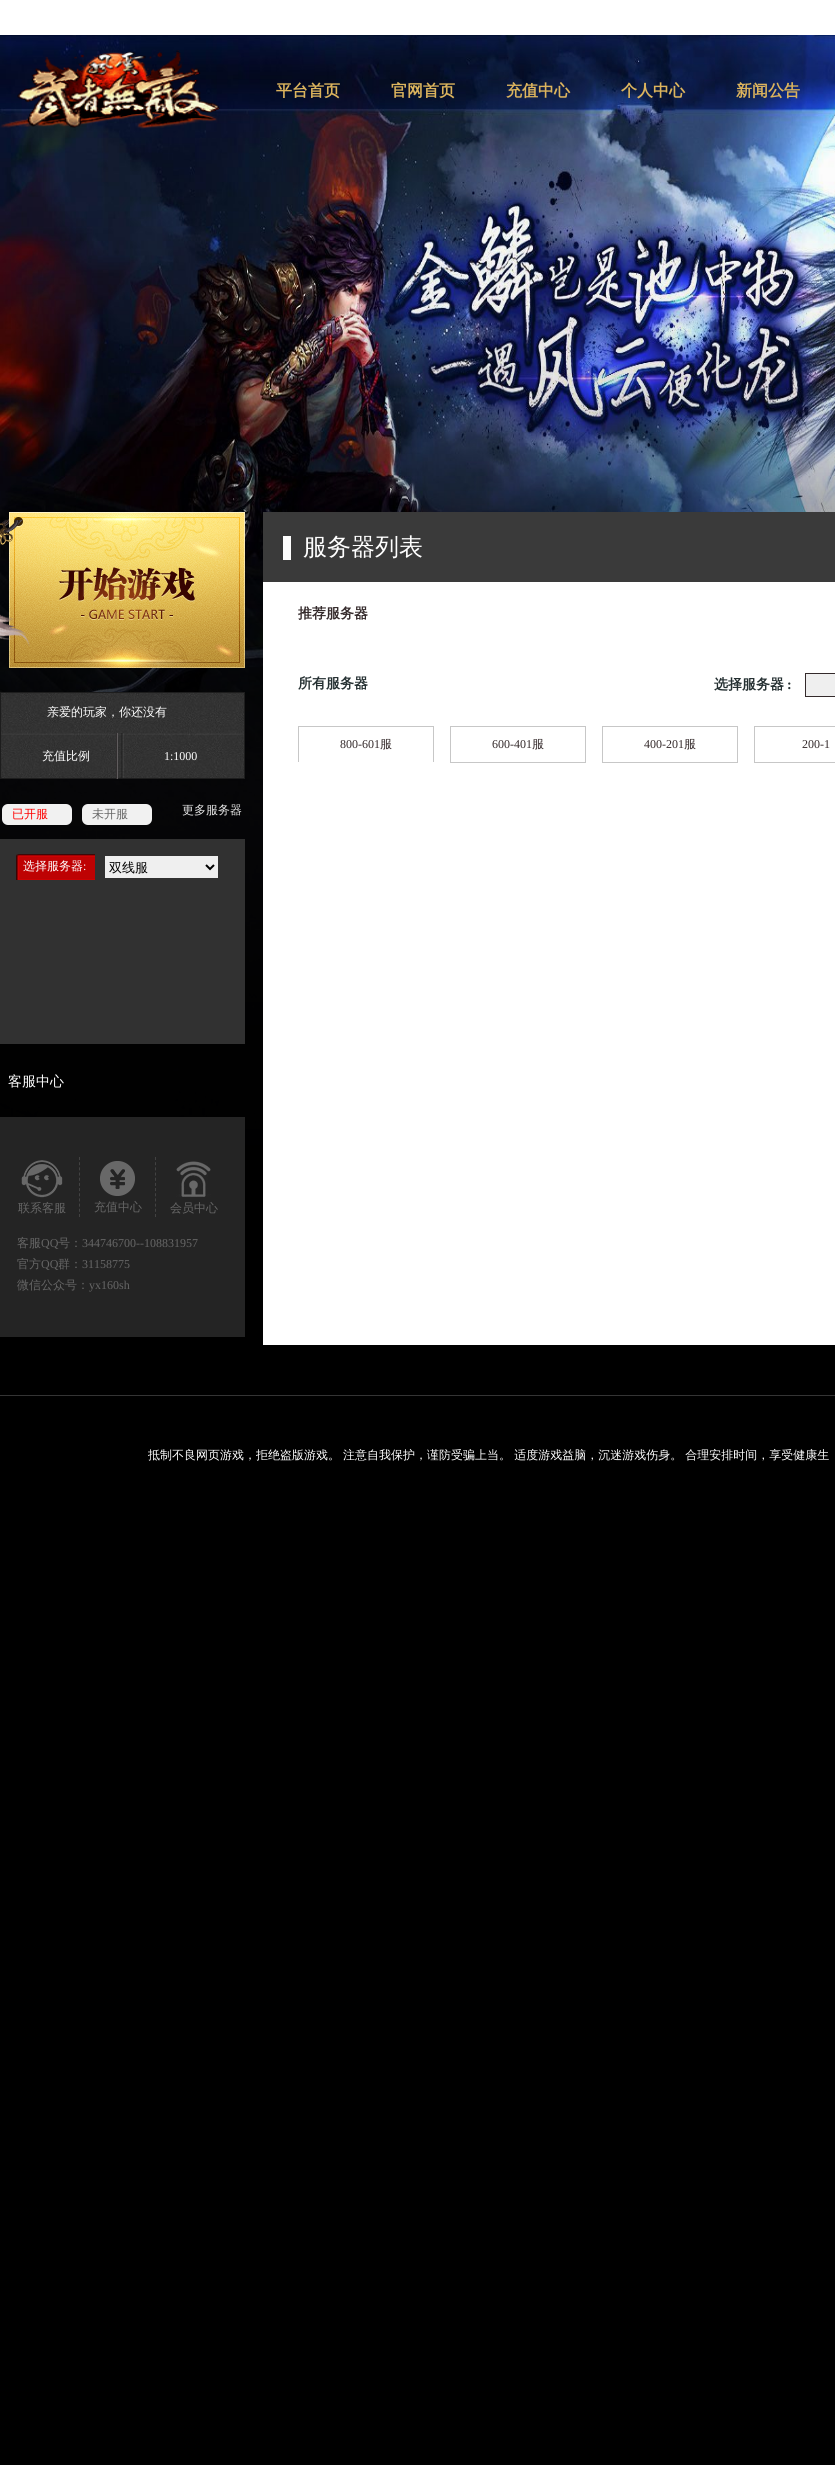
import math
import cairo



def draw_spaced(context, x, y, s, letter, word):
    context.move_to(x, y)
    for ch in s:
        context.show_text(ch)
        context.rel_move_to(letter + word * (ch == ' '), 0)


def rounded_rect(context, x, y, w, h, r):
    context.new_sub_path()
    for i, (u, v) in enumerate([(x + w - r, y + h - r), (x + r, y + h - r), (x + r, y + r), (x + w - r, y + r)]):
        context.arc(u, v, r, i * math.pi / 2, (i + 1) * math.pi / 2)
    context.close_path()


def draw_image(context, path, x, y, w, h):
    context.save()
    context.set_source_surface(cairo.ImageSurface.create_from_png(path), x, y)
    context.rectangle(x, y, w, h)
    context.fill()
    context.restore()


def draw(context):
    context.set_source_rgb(0, 0, 0)
    context.paint()
    context.set_source_rgb(1, 1, 1)
    context.rectangle(0, 0, 835, 35)
    context.fill()
    draw_image(context, "images/1.png", 0, 35, 835, 1323)
    draw_image(context, "images/2.png", 0, 50, 220, 79)
    context.rectangle(263, 582, 572, 763)
    context.fill()
    context.set_source_rgb(58 / 255, 58 / 255, 58 / 255)
    context.rectangle(263, 512, 572, 70)
    context.fill()
    context.set_source_rgb(1, 1, 1)
    context.rectangle(283, 536, 8, 24)
    context.fill()
    context.rectangle(805.5, 673.5, 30, 23)
    context.set_source_rgb(52 / 255, 42 / 255, 43 / 255)
    context.set_line_width(1)
    context.stroke()
    context.set_source_rgb(239 / 255, 239 / 255, 239 / 255)
    context.rectangle(806, 674, 29, 22)
    context.fill()
    context.set_source_rgb(199 / 255, 199 / 255, 199 / 255)
    context.rectangle(298, 726, 136, 1)
    context.fill()
    context.rectangle(433, 726, 1, 36)
    context.fill()
    context.rectangle(298, 726, 1, 36)
    context.fill()
    context.rectangle(450.5, 726.5, 135, 36)
    context.stroke()
    context.rectangle(602.5, 726.5, 135, 36)
    context.stroke()
    context.rectangle(754.5, 726.5, 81, 36)
    context.stroke()
    draw_image(context, "images/3.png", 0, 512, 245, 156)
    draw_image(context, "images/4.png", 0, 692, 245, 41)
    draw_image(context, "images/5.png", 0, 733, 245, 46)
    context.set_source_rgb(49 / 255, 46 / 255, 47 / 255)
    context.rectangle(116, 733, 1, 46)
    context.fill()
    context.set_source_rgb(95 / 255, 92 / 255, 93 / 255)
    context.rectangle(117, 733, 1, 46)
    context.fill()
    context.set_source_rgb(49 / 255, 49 / 255, 49 / 255)
    context.rectangle(0, 839, 245, 205)
    context.fill()
    context.set_source_rgb(241 / 255, 241 / 255, 241 / 255)
    rounded_rect(context, 2, 804, 70, 21, 6)
    context.fill()
    rounded_rect(context, 82, 804, 70, 21, 6)
    context.fill()
    draw_image(context, "images/6.png", 16, 854, 79, 26)
    context.set_source_rgb(239 / 255, 239 / 255, 239 / 255)
    context.rectangle(105, 856, 113, 22)
    context.fill()
    context.new_path()
    context.move_to(206, 865)
    context.line_to(210, 869)
    context.line_to(214, 865)
    context.set_source_rgb(0, 0, 0)
    context.set_line_width(2)
    context.stroke()
    context.set_source_rgb(36 / 255, 36 / 255, 36 / 255)
    context.rectangle(0, 1117, 245, 220)
    context.fill()
    draw_image(context, "images/7.png", 21, 1160, 42, 38)
    context.new_path()
    context.move_to(155.5, 1157)
    context.line_to(155.5, 1217)
    context.set_source_rgb(66 / 255, 66 / 255, 66 / 255)
    context.set_line_width(1)
    context.set_dash([3, 2.18])
    context.stroke()
    context.new_path()
    context.move_to(79.5, 1157)
    context.line_to(79.5, 1217)
    context.stroke()
    draw_image(context, "images/8.png", 100, 1161, 35, 35)
    draw_image(context, "images/9.png", 176, 1161, 35, 36)
    context.set_source_rgb(52 / 255, 52 / 255, 52 / 255)
    context.rectangle(0, 1395, 835, 1)
    context.fill()
    context.select_font_face("WenQuanYi Zen Hei", cairo.FontSlant.NORMAL, cairo.FontWeight.BOLD)
    context.set_font_size(16)
    context.set_source_rgb(220 / 255, 180 / 255, 93 / 255)
    context.move_to(276, 96)
    context.show_text("平台首页")
    context.move_to(391, 96)
    context.show_text("官网首页")
    context.move_to(506, 96)
    context.show_text("充值中心")
    context.move_to(621, 96)
    context.show_text("个人中心")
    context.move_to(736, 96)
    context.show_text("新闻公告")
    context.select_font_face("WenQuanYi Zen Hei Medium")
    context.set_font_size(24)
    context.set_source_rgb(1, 1, 1)
    context.move_to(303, 555)
    context.show_text("服务器列表")
    context.select_font_face("WenQuanYi Zen Hei", cairo.FontSlant.NORMAL, cairo.FontWeight.BOLD)
    context.set_font_size(14)
    context.set_source_rgb(52 / 255, 42 / 255, 43 / 255)
    context.move_to(298, 618)
    context.show_text("推荐服务器")
    context.set_source_rgb(36 / 255, 47 / 255, 49 / 255)
    context.move_to(298, 688)
    context.show_text("所有服务器")
    context.move_to(714, 689)
    context.show_text("选择服务器")
    context.select_font_face("Liberation Serif", cairo.FontSlant.NORMAL, cairo.FontWeight.BOLD)
    context.move_to(787, 689)
    context.show_text(":")
    context.select_font_face("Liberation Serif")
    context.set_font_size(12)
    context.set_source_rgb(52 / 255, 42 / 255, 43 / 255)
    context.move_to(340, 748)
    context.show_text("800-601")
    context.select_font_face("WenQuanYi Zen Hei Medium")
    context.move_to(380, 748)
    context.show_text("服")
    context.select_font_face("Liberation Serif")
    context.move_to(492, 748)
    context.show_text("600-401")
    context.select_font_face("WenQuanYi Zen Hei Medium")
    context.move_to(532, 748)
    context.show_text("服")
    context.select_font_face("Liberation Serif")
    context.move_to(644, 748)
    context.show_text("400-201")
    context.select_font_face("WenQuanYi Zen Hei Medium")
    context.move_to(684, 748)
    context.show_text("服")
    context.select_font_face("Liberation Serif")
    context.move_to(802, 748)
    context.show_text("200-1")
    context.select_font_face("WenQuanYi Zen Hei Medium")
    context.set_source_rgb(1, 1, 1)
    context.move_to(47, 716)
    context.show_text("亲爱的玩家，你还没有")
    context.move_to(42, 760)
    context.show_text("充值比例")
    context.select_font_face("Liberation Serif")
    context.move_to(164, 760)
    context.show_text("1:1000")
    context.select_font_face("WenQuanYi Zen Hei Medium")
    context.set_source_rgb(1, 0, 0)
    context.move_to(12, 818)
    context.show_text("已开服")
    context.set_source_rgb(102 / 255, 102 / 255, 102 / 255)
    context.move_to(92, 818)
    context.show_text("未开服")
    context.set_source_rgb(230 / 255, 230 / 255, 230 / 255)
    context.move_to(182, 814)
    context.show_text("更多服务器")
    context.set_source_rgb(1, 1, 1)
    context.move_to(23, 870)
    context.show_text("选择服务器")
    context.select_font_face("Liberation Serif")
    context.move_to(83, 870)
    context.show_text(":")
    context.select_font_face("WenQuanYi Zen Hei Medium")
    context.set_font_size(13)
    context.set_source_rgb(0, 0, 0)
    context.move_to(109, 872)
    context.show_text("双线服")
    context.set_font_size(14)
    context.set_source_rgb(1, 1, 1)
    context.move_to(8, 1086)
    context.show_text("客服中心")
    context.set_font_size(12)
    context.set_source_rgb(102 / 255, 102 / 255, 102 / 255)
    context.move_to(18, 1212)
    context.show_text("联系客服")
    context.move_to(94, 1211)
    context.show_text("充值中心")
    context.move_to(170, 1212)
    context.show_text("会员中心")
    context.move_to(17, 1247)
    context.show_text("客服")
    context.select_font_face("Liberation Serif")
    context.move_to(41, 1247)
    context.show_text("QQ")
    context.select_font_face("WenQuanYi Zen Hei Medium")
    context.move_to(58, 1247)
    context.show_text("号：")
    context.select_font_face("Liberation Serif")
    context.move_to(82, 1247)
    context.show_text("344746700--108831957")
    context.select_font_face("WenQuanYi Zen Hei Medium")
    context.move_to(17, 1268)
    context.show_text("官方")
    context.select_font_face("Liberation Serif")
    context.move_to(41, 1268)
    context.show_text("QQ")
    context.select_font_face("WenQuanYi Zen Hei Medium")
    context.move_to(58, 1268)
    context.show_text("群：")
    context.select_font_face("Liberation Serif")
    context.move_to(82, 1268)
    context.show_text("31158775")
    context.select_font_face("WenQuanYi Zen Hei Medium")
    context.move_to(17, 1289)
    context.show_text("微信公众号：")
    context.select_font_face("Liberation Serif")
    context.move_to(89, 1289)
    context.show_text("yx160sh")
    context.select_font_face("WenQuanYi Zen Hei Medium")
    context.set_source_rgb(1, 1, 1)
    draw_spaced(context, 148, 1459, "抵制不良网页游戏，拒绝盗版游戏。 注意自我保护，谨防受骗上当。 适度游戏益脑，沉迷游戏伤身。 合理安排时间，享受健康生", 0, -0.5)


surface = cairo.ImageSurface(cairo.Format.RGB24, 835, 2465)
context = cairo.Context(surface)
options = cairo.FontOptions()
options.set_hint_metrics(cairo.HintMetrics.OFF)
options.set_hint_style(cairo.HintStyle.NONE)
context.set_font_options(options)
context.set_miter_limit(4)
draw(context)
surface.write_to_png("out.png")
